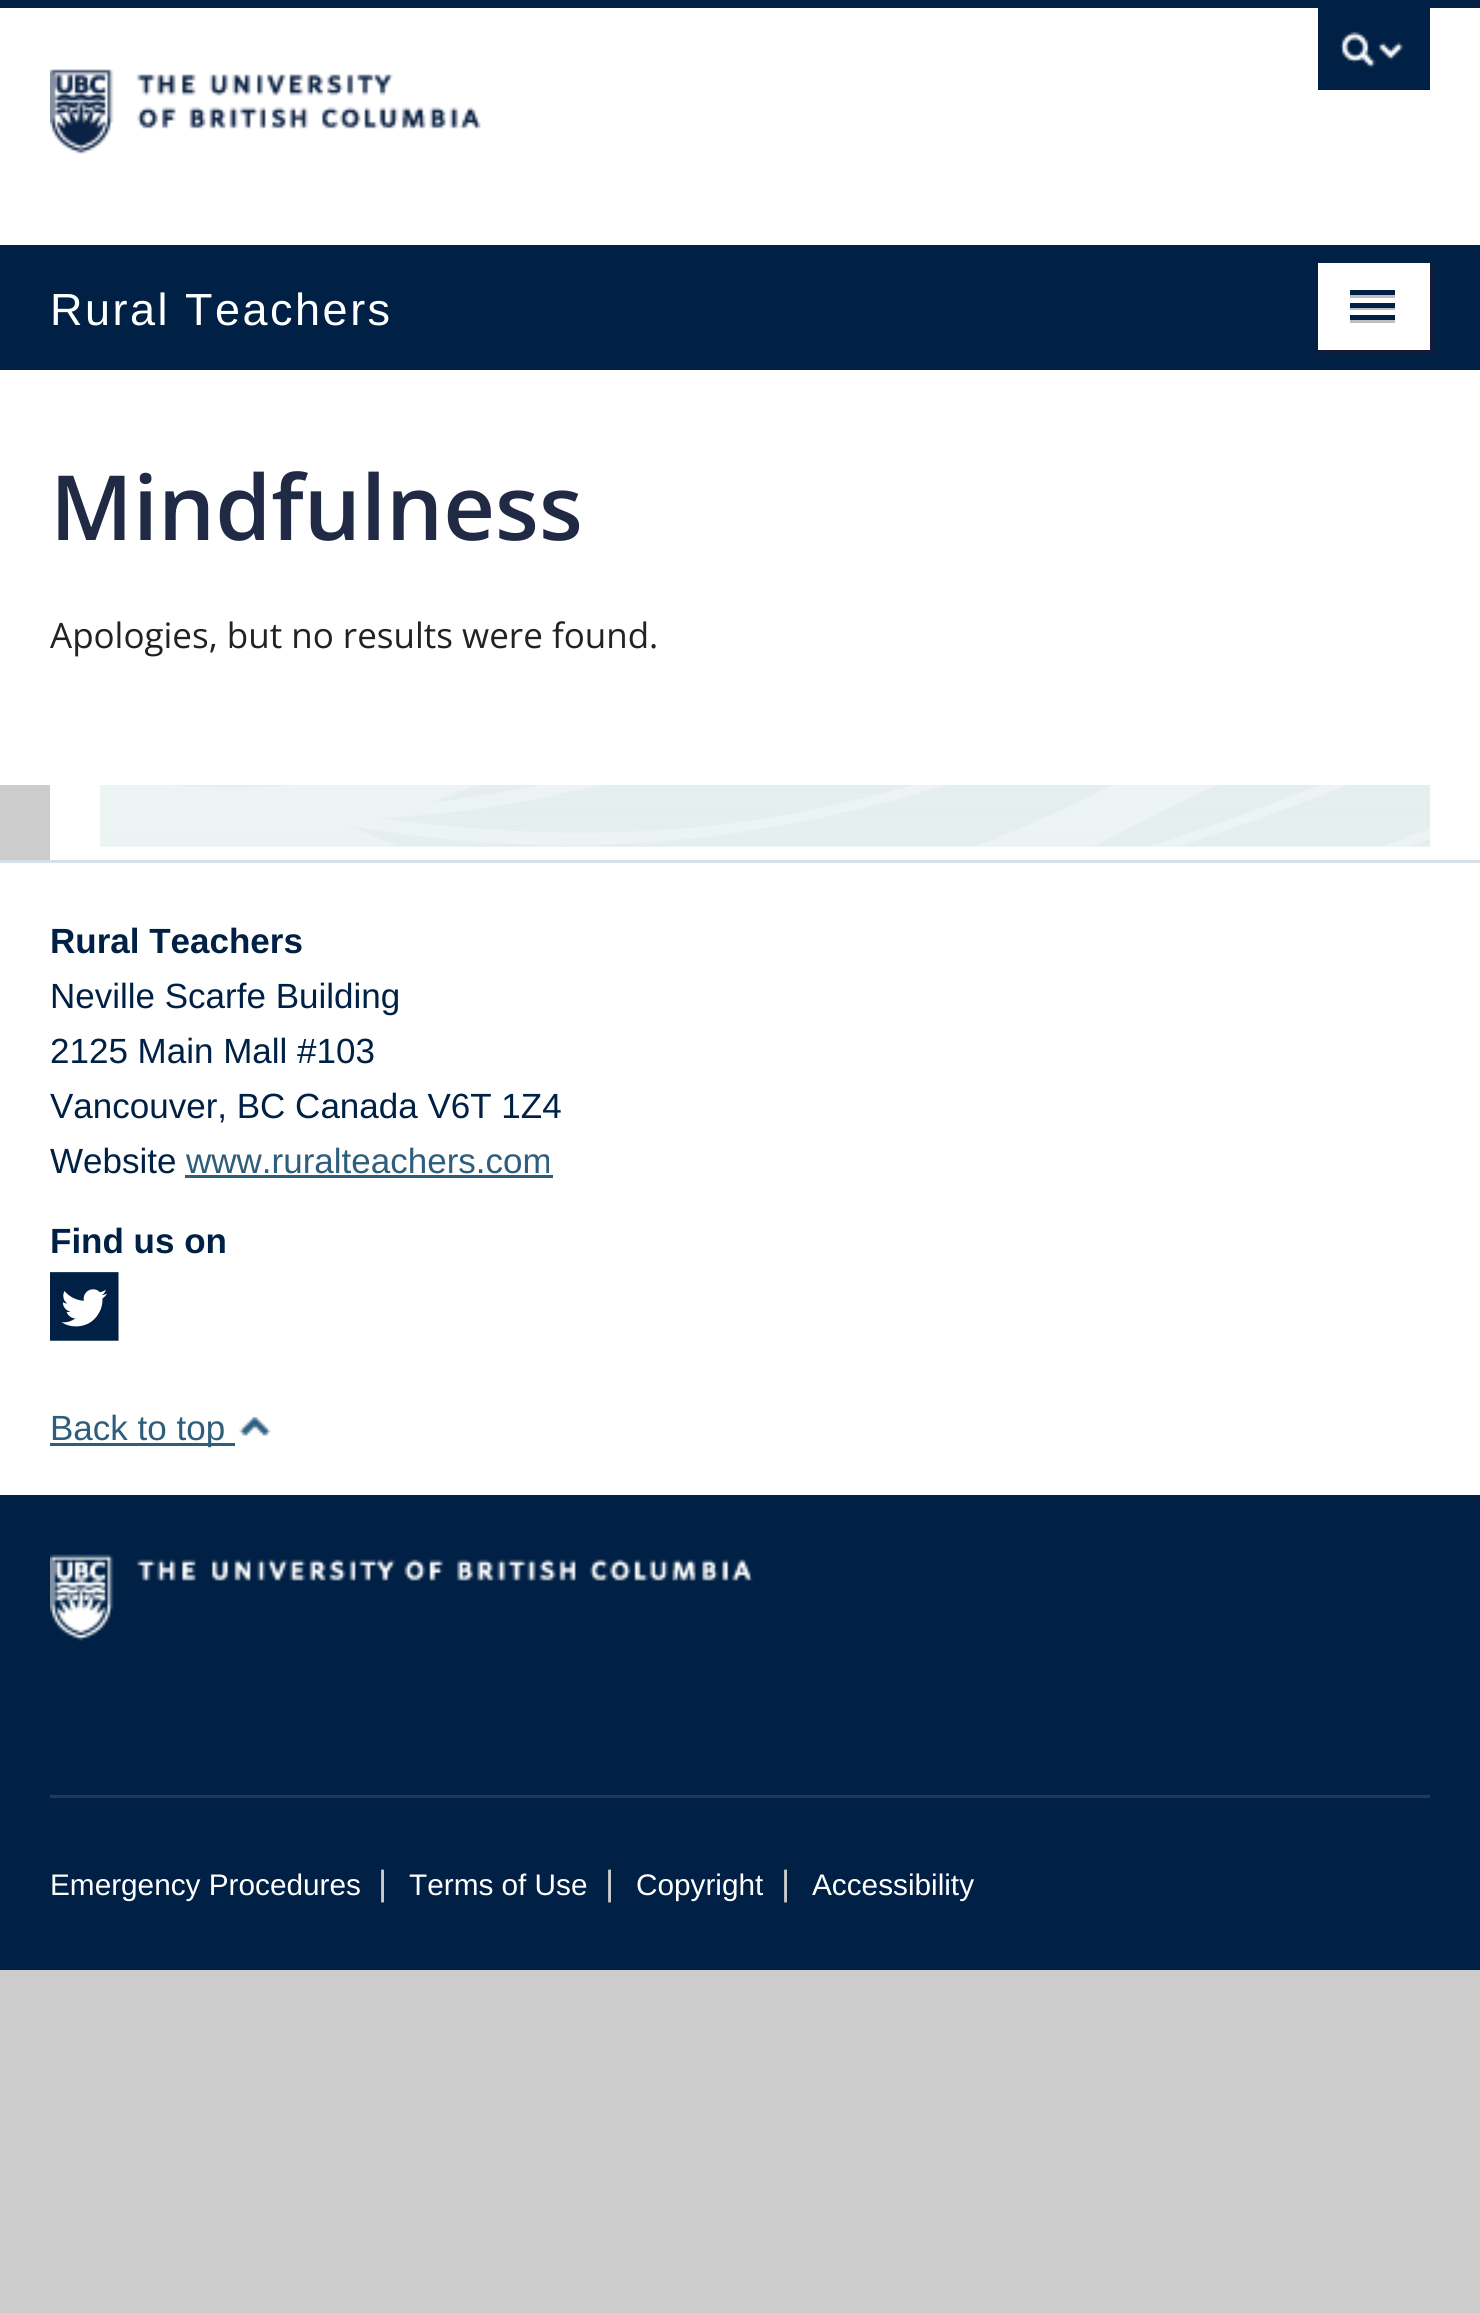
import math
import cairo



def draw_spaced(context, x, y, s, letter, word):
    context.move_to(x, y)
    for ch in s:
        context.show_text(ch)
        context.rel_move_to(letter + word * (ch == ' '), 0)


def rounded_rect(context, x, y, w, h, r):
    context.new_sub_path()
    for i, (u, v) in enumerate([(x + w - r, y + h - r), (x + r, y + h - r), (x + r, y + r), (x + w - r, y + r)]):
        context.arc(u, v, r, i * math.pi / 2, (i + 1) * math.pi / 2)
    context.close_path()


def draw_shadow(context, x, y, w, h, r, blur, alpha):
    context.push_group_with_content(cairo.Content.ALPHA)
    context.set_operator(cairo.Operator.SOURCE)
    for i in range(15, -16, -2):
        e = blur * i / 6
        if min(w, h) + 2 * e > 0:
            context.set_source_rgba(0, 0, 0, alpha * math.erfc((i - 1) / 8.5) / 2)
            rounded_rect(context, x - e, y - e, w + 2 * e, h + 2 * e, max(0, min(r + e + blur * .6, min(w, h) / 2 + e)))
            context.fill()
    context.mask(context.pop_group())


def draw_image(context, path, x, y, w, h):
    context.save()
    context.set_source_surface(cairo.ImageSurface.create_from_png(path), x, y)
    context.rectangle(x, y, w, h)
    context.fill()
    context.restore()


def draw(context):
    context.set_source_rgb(204 / 255, 204 / 255, 204 / 255)
    context.paint()
    context.set_source_rgb(1, 1, 1)
    context.rectangle(0, 8, 1480, 237)
    context.fill()
    context.set_source_rgb(0, 33 / 255, 69 / 255)
    context.rectangle(0, 0, 1480, 8)
    context.fill()
    draw_image(context, "images/1.png", 50, 69, 431, 85)
    context.rectangle(1318, 8, 112, 82)
    context.fill()
    draw_image(context, "images/2.png", 1339, 31, 65, 37)
    context.rectangle(0, 245, 1480, 125)
    context.fill()
    context.set_source_rgb(25 / 255, 25 / 255, 56 / 255)
    draw_shadow(context, 1320, 265, 113, 88, 0, 1, 1)
    context.set_source_rgb(1, 1, 1)
    context.rectangle(1318, 263, 112, 87)
    context.fill()
    context.set_source_rgb(191 / 255, 191 / 255, 191 / 255)
    context.rectangle(1350, 295, 45, 3)
    context.fill()
    context.set_source_rgb(0, 33 / 255, 69 / 255)
    context.rectangle(1350, 290, 45, 5)
    context.fill()
    context.set_source_rgb(191 / 255, 191 / 255, 191 / 255)
    context.rectangle(1350, 308, 45, 2)
    context.fill()
    context.set_source_rgb(0, 33 / 255, 69 / 255)
    context.rectangle(1350, 303, 45, 5)
    context.fill()
    context.set_source_rgb(191 / 255, 191 / 255, 191 / 255)
    context.rectangle(1350, 320, 45, 3)
    context.fill()
    context.set_source_rgb(0, 33 / 255, 69 / 255)
    context.rectangle(1350, 315, 45, 5)
    context.fill()
    context.set_source_rgb(1, 1, 1)
    context.rectangle(0, 370, 1480, 415)
    context.fill()
    context.rectangle(50, 785, 1430, 75)
    context.fill()
    draw_image(context, "images/3.png", 100, 785, 1330, 62)
    context.set_source_rgb(0, 33 / 255, 69 / 255)
    context.rectangle(0, 1495, 1480, 475)
    context.fill()
    context.set_source_rgb(1, 1, 1)
    context.rectangle(0, 863, 1480, 632)
    context.fill()
    context.set_source_rgb(215 / 255, 224 / 255, 231 / 255)
    context.rectangle(0, 860, 1480, 3)
    context.fill()
    context.set_source_rgb(47 / 255, 93 / 255, 124 / 255)
    context.rectangle(185, 1175, 368, 3)
    context.fill()
    draw_image(context, "images/4.png", 50, 1272, 69, 69)
    context.rectangle(50, 1443, 185, 3)
    context.fill()
    draw_image(context, "images/5.png", 239, 1416, 32, 20)
    draw_image(context, "images/6.png", 50, 1554, 703, 87)
    context.set_source_rgb(31 / 255, 56 / 255, 95 / 255)
    context.rectangle(50, 1795, 1380, 3)
    context.fill()
    context.select_font_face("Liberation Sans")
    context.set_font_size(45)
    context.set_source_rgb(1, 1, 1)
    draw_spaced(context, 50, 325, "Rural Teachers", 2.5, 0)
    context.select_font_face("Open Sans SemiBold")
    context.set_font_size(90)
    context.set_source_rgb(32 / 255, 42 / 255, 68 / 255)
    context.move_to(50, 540)
    context.show_text("Mindfulness")
    context.select_font_face("Open Sans")
    context.set_font_size(35)
    context.set_source_rgb(34 / 255, 34 / 255, 34 / 255)
    context.move_to(50, 648)
    context.show_text("Apologies, but no results were found.")
    context.select_font_face("Liberation Sans", cairo.FontSlant.NORMAL, cairo.FontWeight.BOLD)
    context.set_source_rgb(0, 33 / 255, 69 / 255)
    context.move_to(50, 953)
    context.show_text("Rural Teachers")
    context.select_font_face("Liberation Sans")
    context.move_to(50, 1008)
    context.show_text("Neville Scarfe Building")
    context.move_to(50, 1063)
    context.show_text("2125 Main Mall #103")
    context.move_to(50, 1118)
    context.show_text("Vancouver, BC Canada V6T 1Z4")
    context.move_to(50, 1173)
    context.show_text("Website")
    context.set_source_rgb(47 / 255, 93 / 255, 124 / 255)
    context.move_to(186, 1173)
    context.show_text("www.ruralteachers.com")
    context.select_font_face("Liberation Sans", cairo.FontSlant.NORMAL, cairo.FontWeight.BOLD)
    context.set_source_rgb(0, 33 / 255, 69 / 255)
    context.move_to(50, 1253)
    context.show_text("Find us on")
    context.select_font_face("Liberation Sans")
    context.set_source_rgb(47 / 255, 93 / 255, 124 / 255)
    context.move_to(50, 1440)
    context.show_text("Back to top")
    context.set_font_size(29.75)
    context.set_source_rgb(1, 1, 1)
    context.move_to(50, 1895)
    context.show_text("Emergency Procedures")
    context.set_font_size(35)
    context.set_source_rgb(204 / 255, 204 / 255, 204 / 255)
    context.move_to(378, 1895)
    context.show_text("|")
    context.set_font_size(29.75)
    context.set_source_rgb(1, 1, 1)
    context.move_to(409, 1895)
    context.show_text("Terms of Use")
    context.set_font_size(35)
    context.set_source_rgb(204 / 255, 204 / 255, 204 / 255)
    context.move_to(605, 1895)
    context.show_text("|")
    context.set_font_size(29.75)
    context.set_source_rgb(1, 1, 1)
    context.move_to(636, 1895)
    context.show_text("Copyright")
    context.set_font_size(35)
    context.set_source_rgb(204 / 255, 204 / 255, 204 / 255)
    context.move_to(781, 1895)
    context.show_text("|")
    context.set_font_size(29.75)
    context.set_source_rgb(1, 1, 1)
    context.move_to(812, 1895)
    context.show_text("Accessibility")


surface = cairo.ImageSurface(cairo.Format.RGB24, 1480, 2313)
context = cairo.Context(surface)
options = cairo.FontOptions()
options.set_hint_metrics(cairo.HintMetrics.OFF)
options.set_hint_style(cairo.HintStyle.NONE)
context.set_font_options(options)
context.set_miter_limit(4)
draw(context)
surface.write_to_png("out.png")
